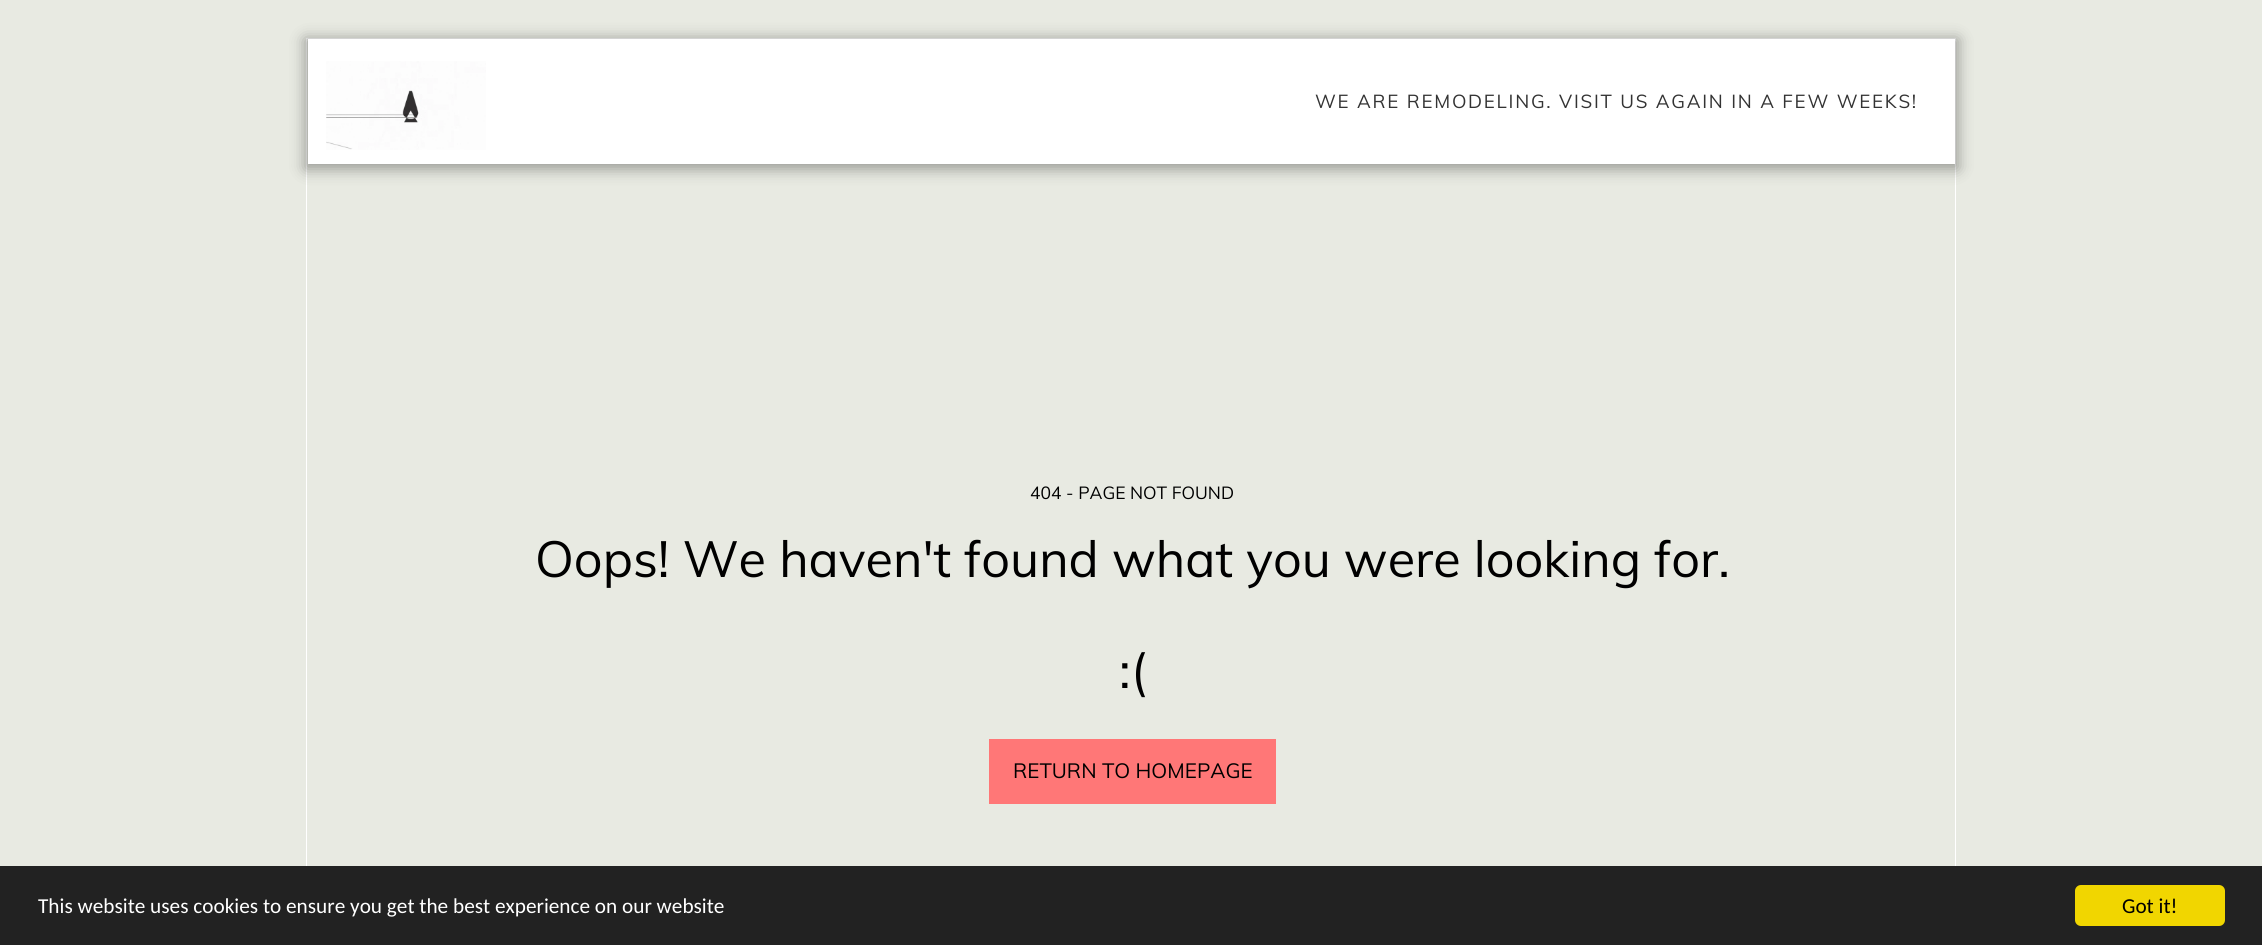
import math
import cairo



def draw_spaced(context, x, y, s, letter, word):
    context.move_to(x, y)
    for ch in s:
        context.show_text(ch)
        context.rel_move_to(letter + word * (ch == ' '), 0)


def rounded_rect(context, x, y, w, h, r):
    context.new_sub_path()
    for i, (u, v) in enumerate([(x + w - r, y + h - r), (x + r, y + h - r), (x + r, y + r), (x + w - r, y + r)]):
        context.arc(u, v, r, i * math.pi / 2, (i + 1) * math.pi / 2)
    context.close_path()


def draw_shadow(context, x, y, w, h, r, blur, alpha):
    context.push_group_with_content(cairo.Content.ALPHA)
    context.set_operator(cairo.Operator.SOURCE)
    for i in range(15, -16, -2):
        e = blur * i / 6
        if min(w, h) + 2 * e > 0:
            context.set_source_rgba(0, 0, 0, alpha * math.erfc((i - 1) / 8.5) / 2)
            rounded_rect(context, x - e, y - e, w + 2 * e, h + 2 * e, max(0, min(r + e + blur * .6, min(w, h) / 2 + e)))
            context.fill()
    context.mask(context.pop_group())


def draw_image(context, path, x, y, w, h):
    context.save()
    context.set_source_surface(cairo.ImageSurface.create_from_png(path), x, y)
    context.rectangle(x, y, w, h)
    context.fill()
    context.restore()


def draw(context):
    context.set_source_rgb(232 / 255, 234 / 255, 226 / 255)
    context.paint()
    context.rectangle(306.5, 38.5, 1649, 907)
    context.set_source_rgb(1, 1, 1)
    context.set_line_width(1)
    context.stroke()
    context.set_source_rgb(0, 0, 0)
    draw_shadow(context, 305, 39, 1653, 130, 0, 7.5, 0.35)
    context.set_source_rgb(1, 1, 1)
    context.rectangle(308, 39, 1647, 125)
    context.fill()
    draw_image(context, "images/1.png", 326, 61, 160, 89)
    context.set_source_rgb(1, 119 / 255, 119 / 255)
    context.rectangle(989, 739, 287, 65)
    context.fill()
    context.set_source_rgb(34 / 255, 34 / 255, 34 / 255)
    context.rectangle(0, 866, 2262, 79)
    context.fill()
    context.set_source_rgb(241 / 255, 214 / 255, 0)
    rounded_rect(context, 2075, 885, 150, 41, 6)
    context.fill()
    context.select_font_face("Muli")
    context.set_font_size(18.75)
    context.set_source_rgb(51 / 255, 51 / 255, 51 / 255)
    draw_spaced(context, 1315, 108, "WE ARE REMODELING. VISIT US AGAIN IN A FEW WEEKS!", 1.75, 0)
    context.set_font_size(17.5)
    context.set_source_rgb(0, 0, 0)
    context.move_to(1030, 499)
    context.show_text("404 - PAGE NOT FOUND")
    context.set_font_size(50.35)
    context.move_to(535, 577)
    context.show_text("Oops! We haven't found what you were looking for.")
    context.move_to(1119, 688)
    context.show_text(":(")
    context.set_font_size(20.6)
    context.move_to(1013, 778)
    context.show_text("RETURN TO HOMEPAGE")
    context.select_font_face("Carlito")
    context.set_font_size(21.25)
    context.set_source_rgb(1, 1, 1)
    context.move_to(38, 913)
    context.show_text("This website uses cookies to ensure you get the best experience on our website")
    context.set_source_rgb(0, 0, 0)
    context.move_to(2122, 913)
    context.show_text("Got it!")


surface = cairo.ImageSurface(cairo.Format.RGB24, 2262, 945)
context = cairo.Context(surface)
options = cairo.FontOptions()
options.set_hint_metrics(cairo.HintMetrics.OFF)
options.set_hint_style(cairo.HintStyle.NONE)
context.set_font_options(options)
context.set_miter_limit(4)
draw(context)
surface.write_to_png("out.png")
